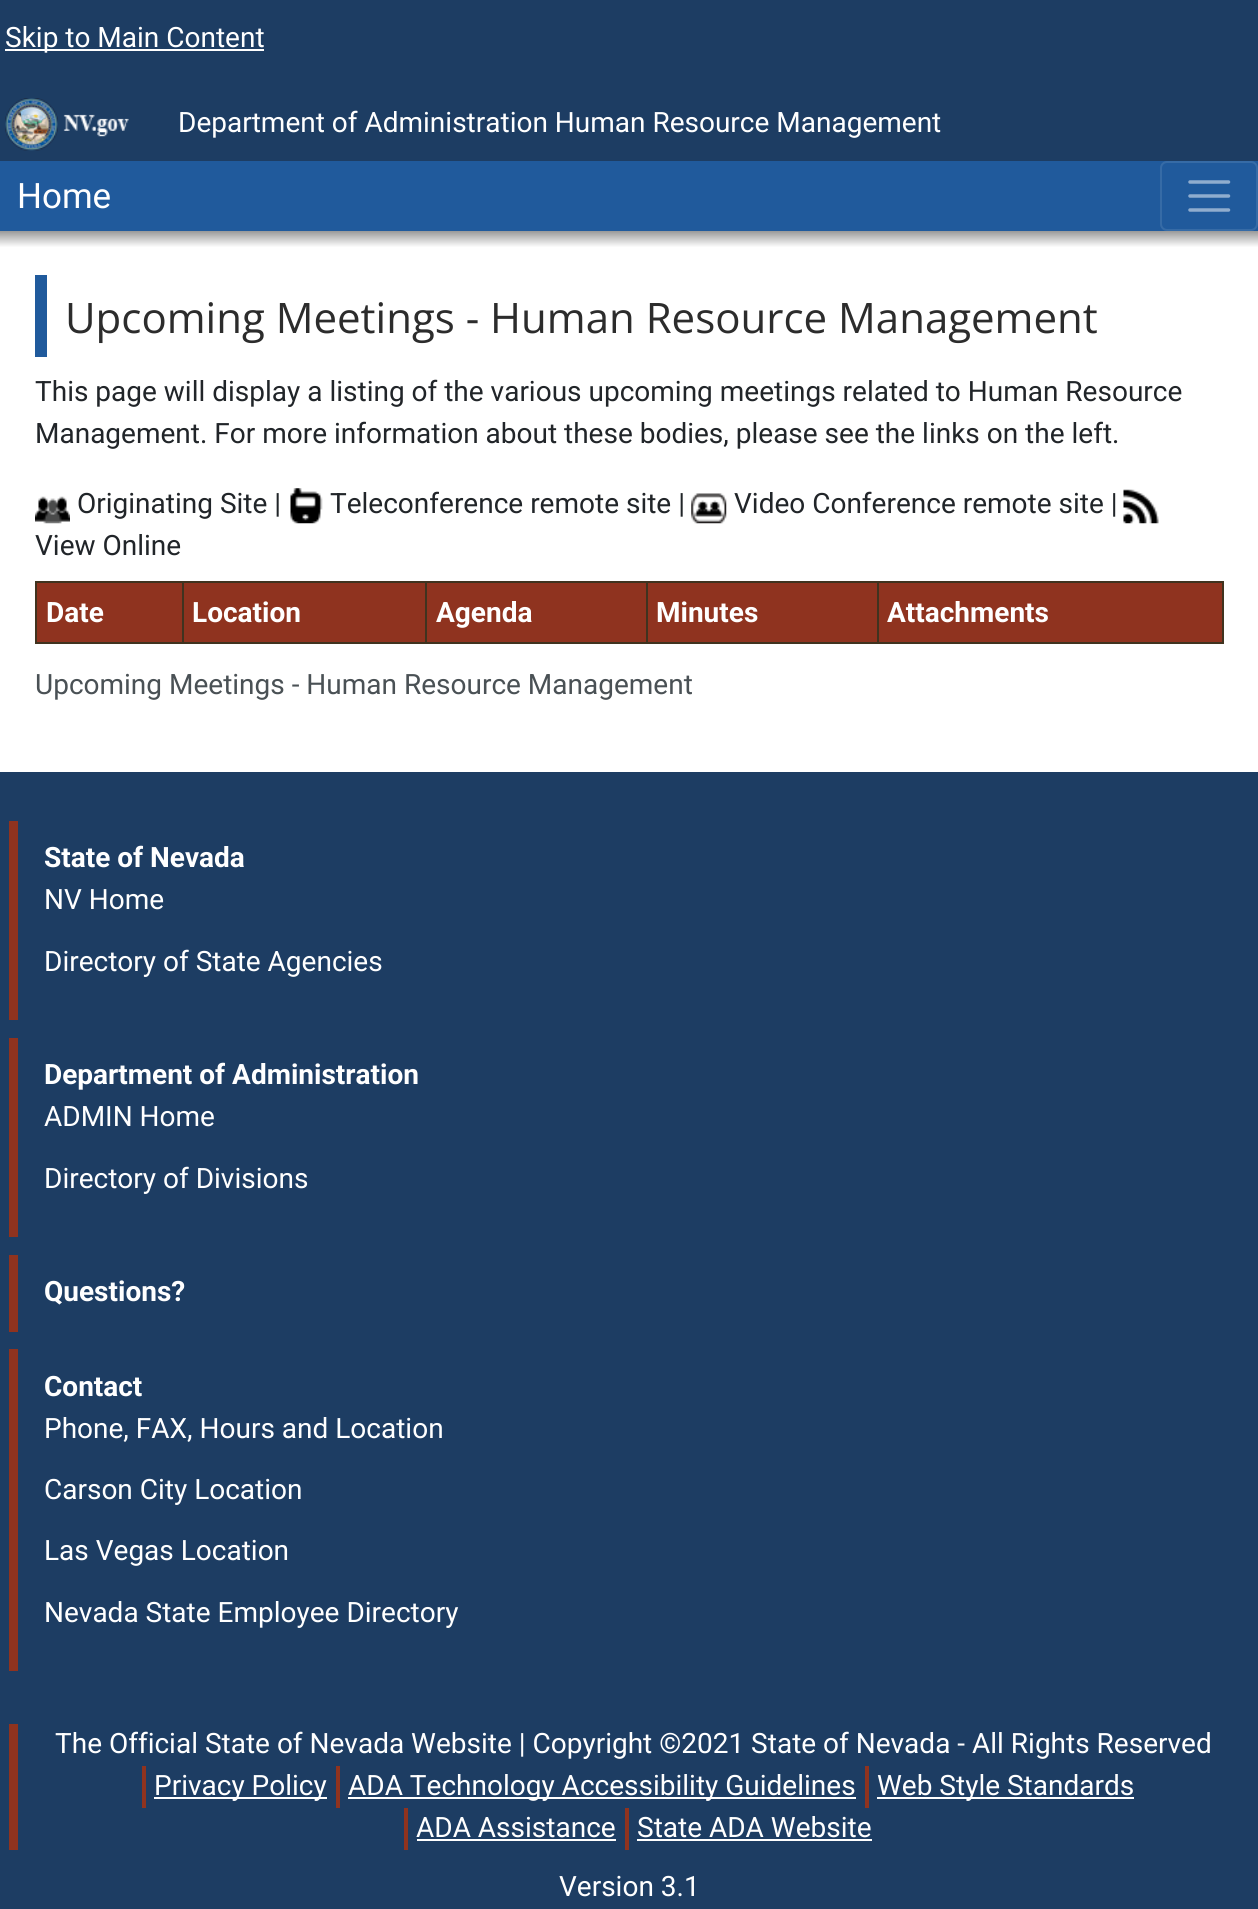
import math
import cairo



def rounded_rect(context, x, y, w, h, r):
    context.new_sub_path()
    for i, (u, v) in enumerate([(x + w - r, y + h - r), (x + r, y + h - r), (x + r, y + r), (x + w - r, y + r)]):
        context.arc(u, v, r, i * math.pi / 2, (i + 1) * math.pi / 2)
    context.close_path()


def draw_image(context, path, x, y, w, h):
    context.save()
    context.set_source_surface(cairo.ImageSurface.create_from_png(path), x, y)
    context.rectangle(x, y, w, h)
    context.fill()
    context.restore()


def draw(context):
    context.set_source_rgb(1, 1, 1)
    context.paint()
    gradient = cairo.LinearGradient(629, 0, 629, 1909)
    gradient.add_color_stop_rgba(0, 29 / 255, 61 / 255, 99 / 255, 1)
    gradient.add_color_stop_rgba(0.2, 29 / 255, 61 / 255, 99 / 255, 1)
    gradient.add_color_stop_rgba(0.4, 32 / 255, 90 / 255, 156 / 255, 1)
    context.set_source(gradient)
    context.rectangle(0, 0, 1258, 161)
    context.fill()
    context.set_source_rgb(1, 1, 1)
    context.rectangle(5, 49, 259, 2)
    context.fill()
    draw_image(context, "images/1.png", 5, 98, 124, 53)
    context.set_source_rgb(32 / 255, 90 / 255, 156 / 255)
    context.rectangle(0, 161, 1258, 70)
    context.fill()
    rounded_rect(context, 1161, 162, 96, 68, 6)
    context.set_source_rgb(54 / 255, 107 / 255, 166 / 255)
    context.stroke()
    context.new_path()
    context.move_to(1190, 182)
    context.line_to(1228.5, 182)
    context.move_to(1190, 196)
    context.line_to(1228.5, 196)
    context.move_to(1190, 210)
    context.line_to(1228.5, 210)
    context.set_source_rgb(144 / 255, 173 / 255, 206 / 255)
    context.set_line_width(3.5)
    context.set_line_cap(cairo.LineCap.ROUND)
    context.stroke()
    gradient = cairo.LinearGradient(629, 231, 629, 772)
    gradient.add_color_stop_rgba(0, 153 / 255, 153 / 255, 153 / 255, 1)
    gradient.add_color_stop_rgba(0.03, 1, 1, 1, 1)
    gradient.add_color_stop_rgba(1, 1, 1, 1, 1)
    context.set_source(gradient)
    context.rectangle(0, 231, 1258, 16)
    context.fill()
    context.set_source_rgb(32 / 255, 90 / 255, 156 / 255)
    context.rectangle(35, 275, 12, 82)
    context.fill()
    draw_image(context, "images/2.png", 35, 496, 35, 28)
    draw_image(context, "images/3.png", 290, 488, 33, 36)
    draw_image(context, "images/4.png", 691, 493, 36, 31)
    draw_image(context, "images/5.png", 1123, 489, 36, 35)
    context.set_source_rgb(143 / 255, 51 / 255, 31 / 255)
    context.rectangle(37, 583, 145, 59)
    context.fill()
    context.set_source_rgb(64 / 255, 51 / 255, 31 / 255)
    context.rectangle(877, 581, 346, 2)
    context.fill()
    context.rectangle(1222, 581, 2, 63)
    context.fill()
    context.rectangle(877, 642, 346, 2)
    context.fill()
    context.rectangle(877, 581, 2, 63)
    context.fill()
    context.rectangle(646, 581, 233, 2)
    context.fill()
    context.rectangle(646, 642, 233, 2)
    context.fill()
    context.rectangle(646, 581, 2, 63)
    context.fill()
    context.rectangle(425, 581, 223, 2)
    context.fill()
    context.rectangle(425, 642, 223, 2)
    context.fill()
    context.rectangle(425, 581, 2, 63)
    context.fill()
    context.rectangle(182, 581, 245, 2)
    context.fill()
    context.rectangle(182, 642, 245, 2)
    context.fill()
    context.rectangle(182, 581, 2, 63)
    context.fill()
    context.rectangle(35, 581, 149, 2)
    context.fill()
    context.rectangle(35, 642, 149, 2)
    context.fill()
    context.rectangle(35, 581, 2, 63)
    context.fill()
    context.set_source_rgb(143 / 255, 51 / 255, 31 / 255)
    context.rectangle(184, 583, 241, 59)
    context.fill()
    context.rectangle(427, 583, 219, 59)
    context.fill()
    context.rectangle(648, 583, 229, 59)
    context.fill()
    context.rectangle(879, 583, 343, 59)
    context.fill()
    context.set_source_rgb(29 / 255, 61 / 255, 99 / 255)
    context.rectangle(0, 772, 1258, 1137)
    context.fill()
    context.set_source_rgb(143 / 255, 51 / 255, 31 / 255)
    context.rectangle(9, 821, 9, 199)
    context.fill()
    context.rectangle(9, 1038, 9, 199)
    context.fill()
    context.rectangle(9, 1255, 9, 77)
    context.fill()
    context.rectangle(9, 1349, 9, 322)
    context.fill()
    context.rectangle(9, 1724, 9, 126)
    context.fill()
    context.rectangle(142, 1766, 4, 42)
    context.fill()
    context.set_source_rgb(1, 1, 1)
    context.rectangle(154, 1797, 173, 2)
    context.fill()
    context.set_source_rgb(143 / 255, 51 / 255, 31 / 255)
    context.rectangle(336, 1766, 4, 42)
    context.fill()
    context.set_source_rgb(1, 1, 1)
    context.rectangle(348, 1797, 508, 2)
    context.fill()
    context.set_source_rgb(143 / 255, 51 / 255, 31 / 255)
    context.rectangle(865, 1766, 4, 42)
    context.fill()
    context.set_source_rgb(1, 1, 1)
    context.rectangle(877, 1797, 257, 2)
    context.fill()
    context.set_source_rgb(143 / 255, 51 / 255, 31 / 255)
    context.rectangle(404, 1808, 4, 42)
    context.fill()
    context.set_source_rgb(1, 1, 1)
    context.rectangle(417, 1839, 199, 2)
    context.fill()
    context.set_source_rgb(143 / 255, 51 / 255, 31 / 255)
    context.rectangle(625, 1808, 4, 42)
    context.fill()
    context.set_source_rgb(1, 1, 1)
    context.rectangle(637, 1839, 235, 2)
    context.fill()
    context.select_font_face("Roboto")
    context.set_font_size(28)
    context.move_to(5, 47)
    context.show_text("Skip to Main Content")
    context.move_to(178, 132)
    context.show_text("Department of Administration Human Resource Management")
    context.set_font_size(35)
    context.move_to(17, 208)
    context.show_text("Home")
    context.select_font_face("Open Sans")
    context.set_font_size(42)
    context.set_source_rgb(44 / 255, 44 / 255, 44 / 255)
    context.move_to(65, 333)
    context.show_text("Upcoming Meetings - Human Resource Management")
    context.select_font_face("Roboto")
    context.set_font_size(28)
    context.set_source_rgb(33 / 255, 37 / 255, 41 / 255)
    context.move_to(35, 401)
    context.show_text("This page will display a listing of the various upcoming meetings related to Human Resource")
    context.move_to(35, 443)
    context.show_text("Management. For more information about these bodies, please see the links on the left.")
    context.move_to(77, 513)
    context.show_text("Originating Site |")
    context.move_to(330, 513)
    context.show_text("Teleconference remote site |")
    context.move_to(734, 513)
    context.show_text("Video Conference remote site |")
    context.move_to(35, 555)
    context.show_text("View Online")
    context.select_font_face("Roboto", cairo.FontSlant.NORMAL, cairo.FontWeight.BOLD)
    context.set_source_rgb(1, 1, 1)
    context.move_to(46, 622)
    context.show_text("Date")
    context.move_to(192, 622)
    context.show_text("Location")
    context.move_to(436, 622)
    context.show_text("Agenda")
    context.move_to(656, 622)
    context.show_text("Minutes")
    context.move_to(887, 622)
    context.show_text("Attachments")
    context.select_font_face("Roboto")
    context.set_source_rgb(74 / 255, 81 / 255, 85 / 255)
    context.move_to(35, 694)
    context.show_text("Upcoming Meetings - Human Resource Management")
    context.select_font_face("Roboto", cairo.FontSlant.NORMAL, cairo.FontWeight.BOLD)
    context.set_source_rgb(1, 1, 1)
    context.move_to(44, 867)
    context.show_text("State of Nevada")
    context.select_font_face("Roboto")
    context.move_to(44, 909)
    context.show_text("NV Home")
    context.move_to(44, 971)
    context.show_text("Directory of State Agencies")
    context.select_font_face("Roboto", cairo.FontSlant.NORMAL, cairo.FontWeight.BOLD)
    context.move_to(44, 1084)
    context.show_text("Department of Administration")
    context.select_font_face("Roboto")
    context.move_to(44, 1126)
    context.show_text("ADMIN Home")
    context.move_to(44, 1188)
    context.show_text("Directory of Divisions")
    context.select_font_face("Roboto", cairo.FontSlant.NORMAL, cairo.FontWeight.BOLD)
    context.move_to(44, 1301)
    context.show_text("Questions?")
    context.move_to(44, 1396)
    context.show_text("Contact")
    context.select_font_face("Roboto")
    context.move_to(44, 1438)
    context.show_text("Phone, FAX, Hours and Location")
    context.move_to(44, 1499)
    context.show_text("Carson City Location")
    context.move_to(44, 1560)
    context.show_text("Las Vegas Location")
    context.move_to(44, 1622)
    context.show_text("Nevada State Employee Directory")
    context.move_to(55, 1753)
    context.show_text("The Official State of Nevada Website | Copyright ©2021 State of Nevada - All Rights Reserved")
    context.move_to(154, 1795)
    context.show_text("Privacy Policy")
    context.move_to(348, 1795)
    context.show_text("ADA Technology Accessibility Guidelines")
    context.move_to(877, 1795)
    context.show_text("Web Style Standards")
    context.move_to(416, 1837)
    context.show_text("ADA Assistance")
    context.move_to(637, 1837)
    context.show_text("State ADA Website")
    context.move_to(559, 1896)
    context.show_text("Version 3.1")


surface = cairo.ImageSurface(cairo.Format.RGB24, 1258, 1909)
context = cairo.Context(surface)
options = cairo.FontOptions()
options.set_hint_metrics(cairo.HintMetrics.OFF)
options.set_hint_style(cairo.HintStyle.NONE)
context.set_font_options(options)
context.set_miter_limit(4)
draw(context)
surface.write_to_png("out.png")
